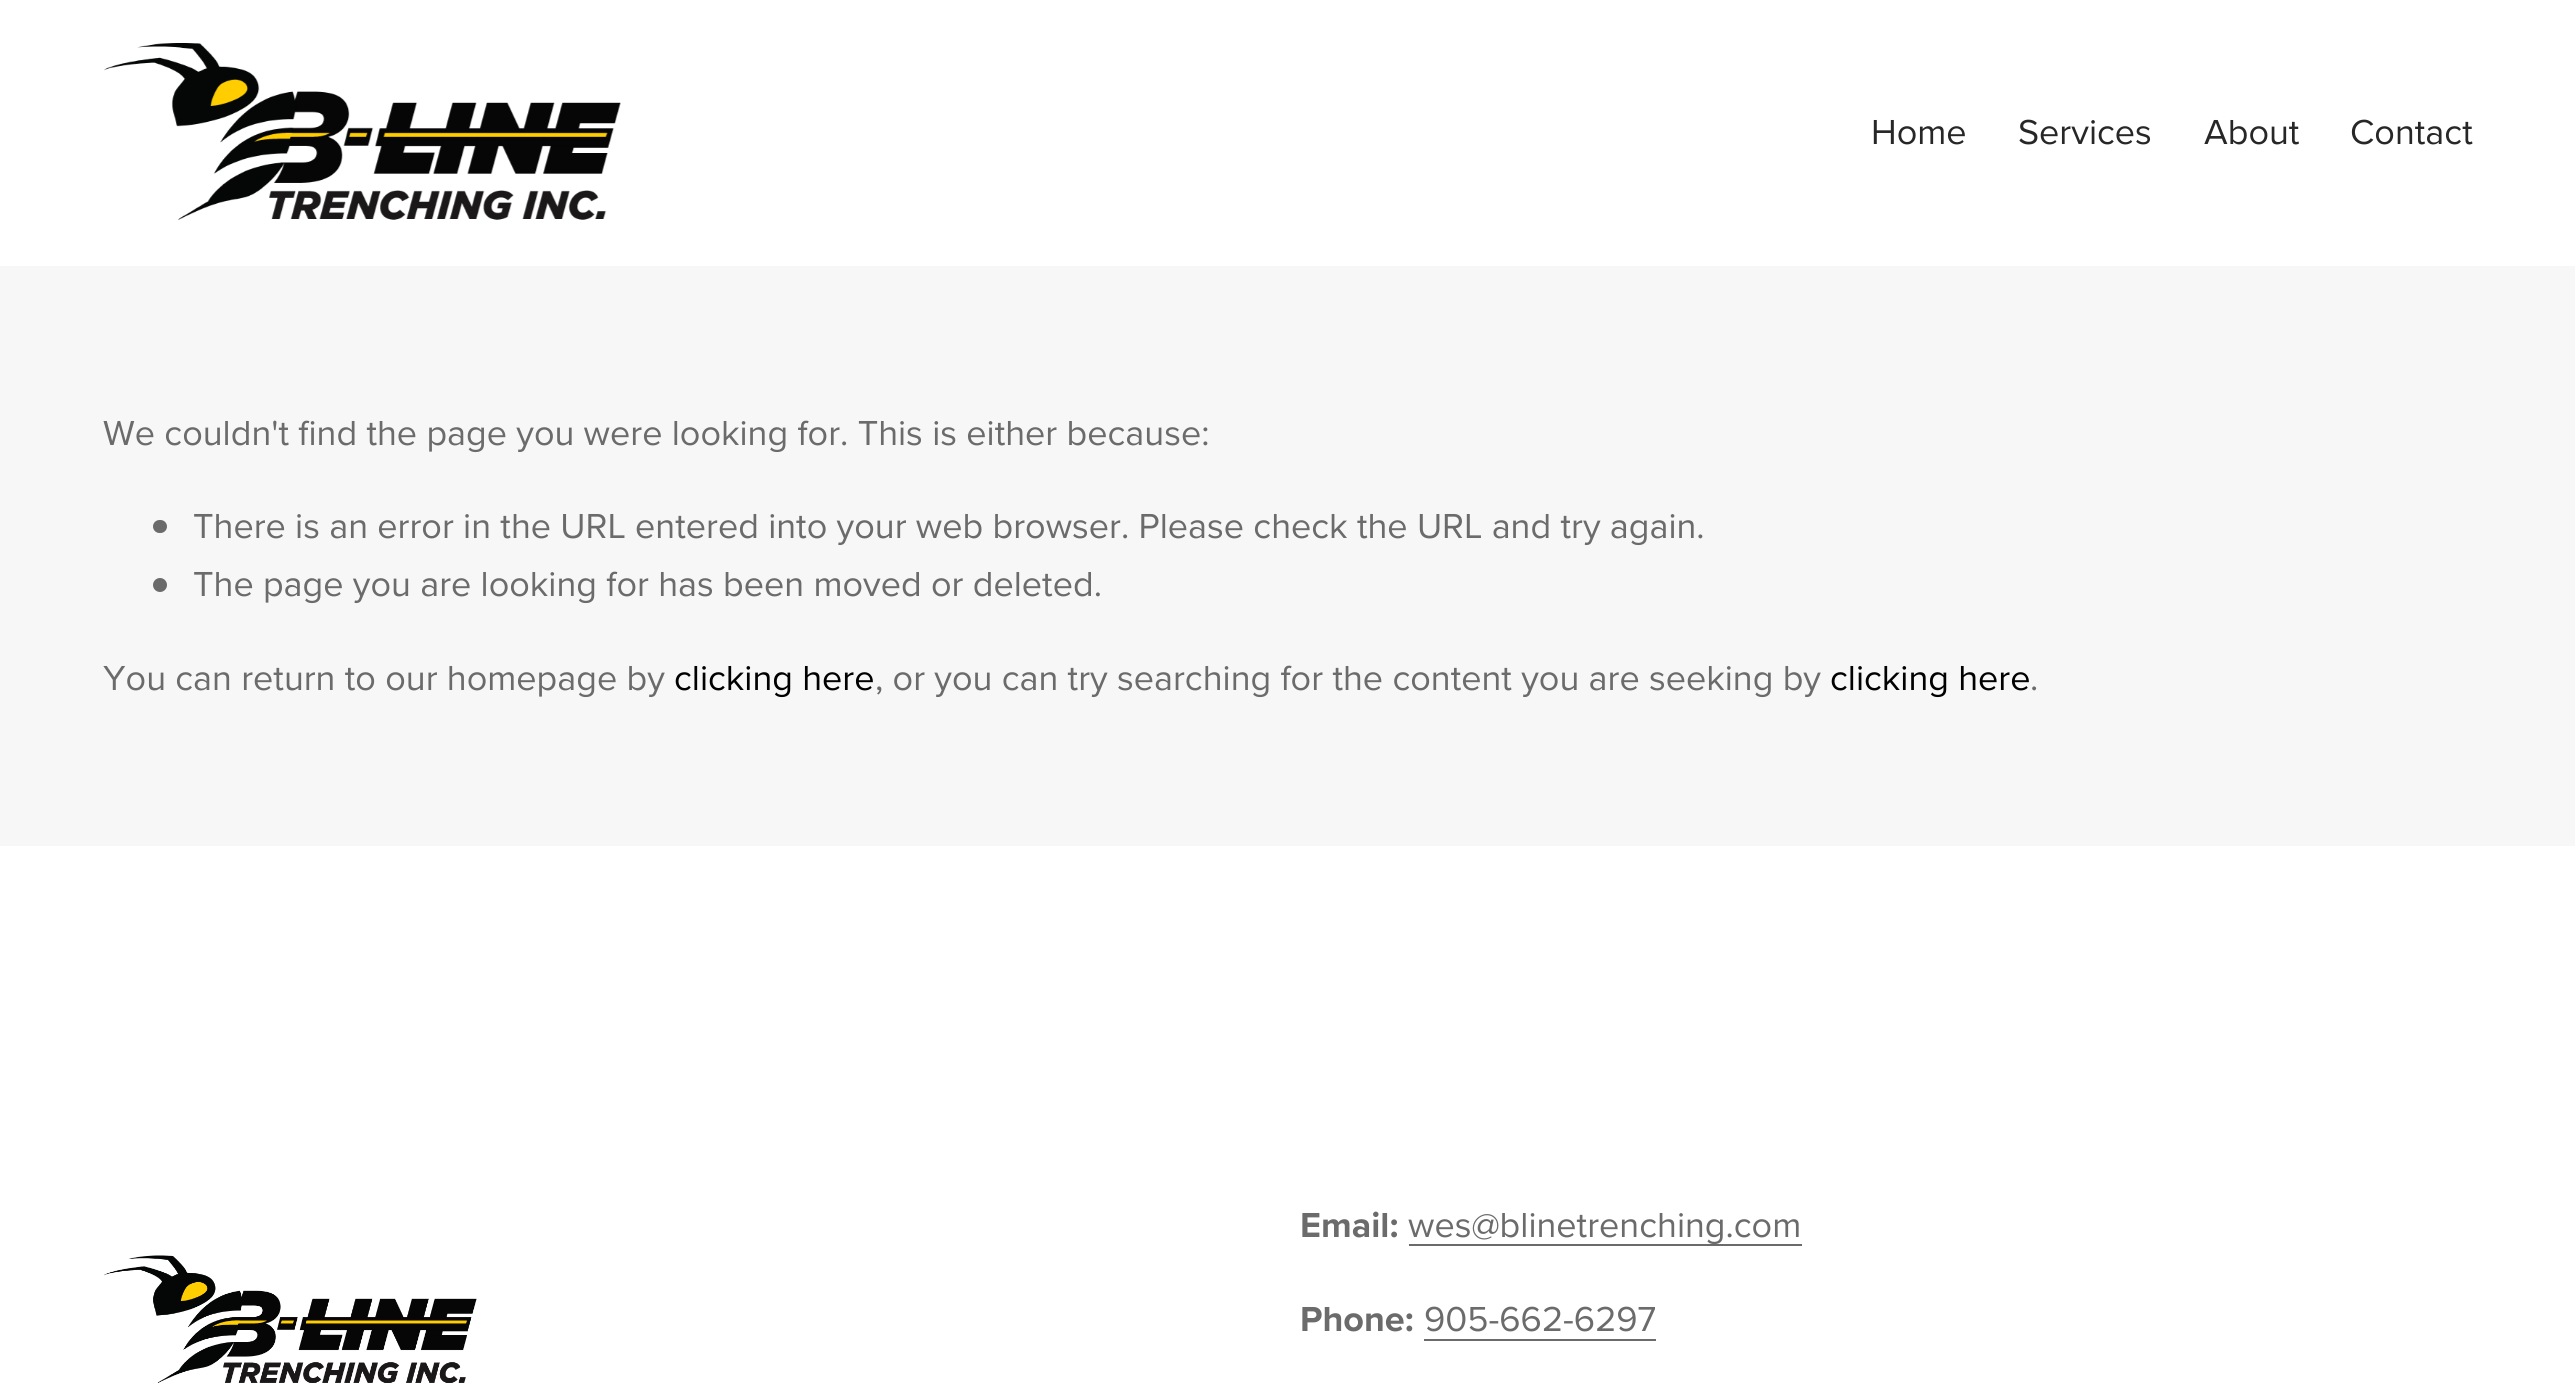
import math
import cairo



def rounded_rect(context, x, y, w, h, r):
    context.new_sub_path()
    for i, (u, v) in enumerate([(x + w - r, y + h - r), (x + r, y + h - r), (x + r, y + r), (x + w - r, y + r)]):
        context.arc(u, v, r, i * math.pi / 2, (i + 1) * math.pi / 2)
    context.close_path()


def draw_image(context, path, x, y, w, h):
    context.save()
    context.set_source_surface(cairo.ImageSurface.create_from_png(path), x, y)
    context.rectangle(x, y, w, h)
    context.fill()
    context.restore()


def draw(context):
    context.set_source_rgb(247 / 255, 247 / 255, 247 / 255)
    context.paint()
    context.set_source_rgb(1, 1, 1)
    context.rectangle(0, 0, 2575, 266)
    context.fill()
    draw_image(context, "images/1.png", 104, 43, 517, 177)
    context.set_source_rgb(107 / 255, 107 / 255, 107 / 255)
    rounded_rect(context, 153, 520, 14, 13, 6.5)
    context.fill()
    context.arc(160, 585, 7, 0, 2 * math.pi)
    context.fill()
    context.set_source_rgb(1, 1, 1)
    context.rectangle(0, 846, 2575, 541)
    context.fill()
    draw_image(context, "images/2.png", 104, 1255, 373, 128)
    context.set_source_rgb(107 / 255, 107 / 255, 107 / 255)
    context.rectangle(1409, 1244, 393, 2)
    context.fill()
    context.rectangle(1424, 1339, 232, 2)
    context.fill()
    context.select_font_face("Proxima Nova")
    context.set_font_size(36)
    context.set_source_rgb(39 / 255, 39 / 255, 39 / 255)
    context.move_to(1871, 144)
    context.show_text("Home")
    context.move_to(2018, 144)
    context.show_text("Services")
    context.move_to(2204, 144)
    context.show_text("About")
    context.move_to(2350, 144)
    context.show_text("Contact")
    context.set_source_rgb(107 / 255, 107 / 255, 107 / 255)
    context.move_to(103, 445)
    context.show_text("We couldn't find the page you were looking for. This is either because:")
    context.move_to(193, 538)
    context.show_text("There is an error in the URL entered into your web browser. Please check the URL and try again.")
    context.move_to(193, 596)
    context.show_text("The page you are looking for has been moved or deleted.")
    context.move_to(103, 690)
    context.show_text("You can return to our homepage by")
    context.set_source_rgb(0, 0, 0)
    context.move_to(674, 690)
    context.show_text("clicking here")
    context.set_source_rgb(107 / 255, 107 / 255, 107 / 255)
    context.move_to(875, 690)
    context.show_text(", or you can try searching for the content you are seeking by")
    context.set_source_rgb(0, 0, 0)
    context.move_to(1830, 690)
    context.show_text("clicking here")
    context.set_source_rgb(107 / 255, 107 / 255, 107 / 255)
    context.move_to(2030, 690)
    context.show_text(".")
    context.select_font_face("Proxima Nova", cairo.FontSlant.NORMAL, cairo.FontWeight.BOLD)
    context.move_to(1300, 1237)
    context.show_text("Email:")
    context.select_font_face("Proxima Nova")
    context.move_to(1408, 1237)
    context.show_text("wes@blinetrenching.com")
    context.select_font_face("Proxima Nova", cairo.FontSlant.NORMAL, cairo.FontWeight.BOLD)
    context.move_to(1300, 1331)
    context.show_text("Phone:")
    context.select_font_face("Proxima Nova")
    context.move_to(1424, 1331)
    context.show_text("905-662-6297")


surface = cairo.ImageSurface(cairo.Format.RGB24, 2575, 1387)
context = cairo.Context(surface)
options = cairo.FontOptions()
options.set_hint_metrics(cairo.HintMetrics.OFF)
options.set_hint_style(cairo.HintStyle.NONE)
context.set_font_options(options)
context.set_miter_limit(4)
draw(context)
surface.write_to_png("out.png")
